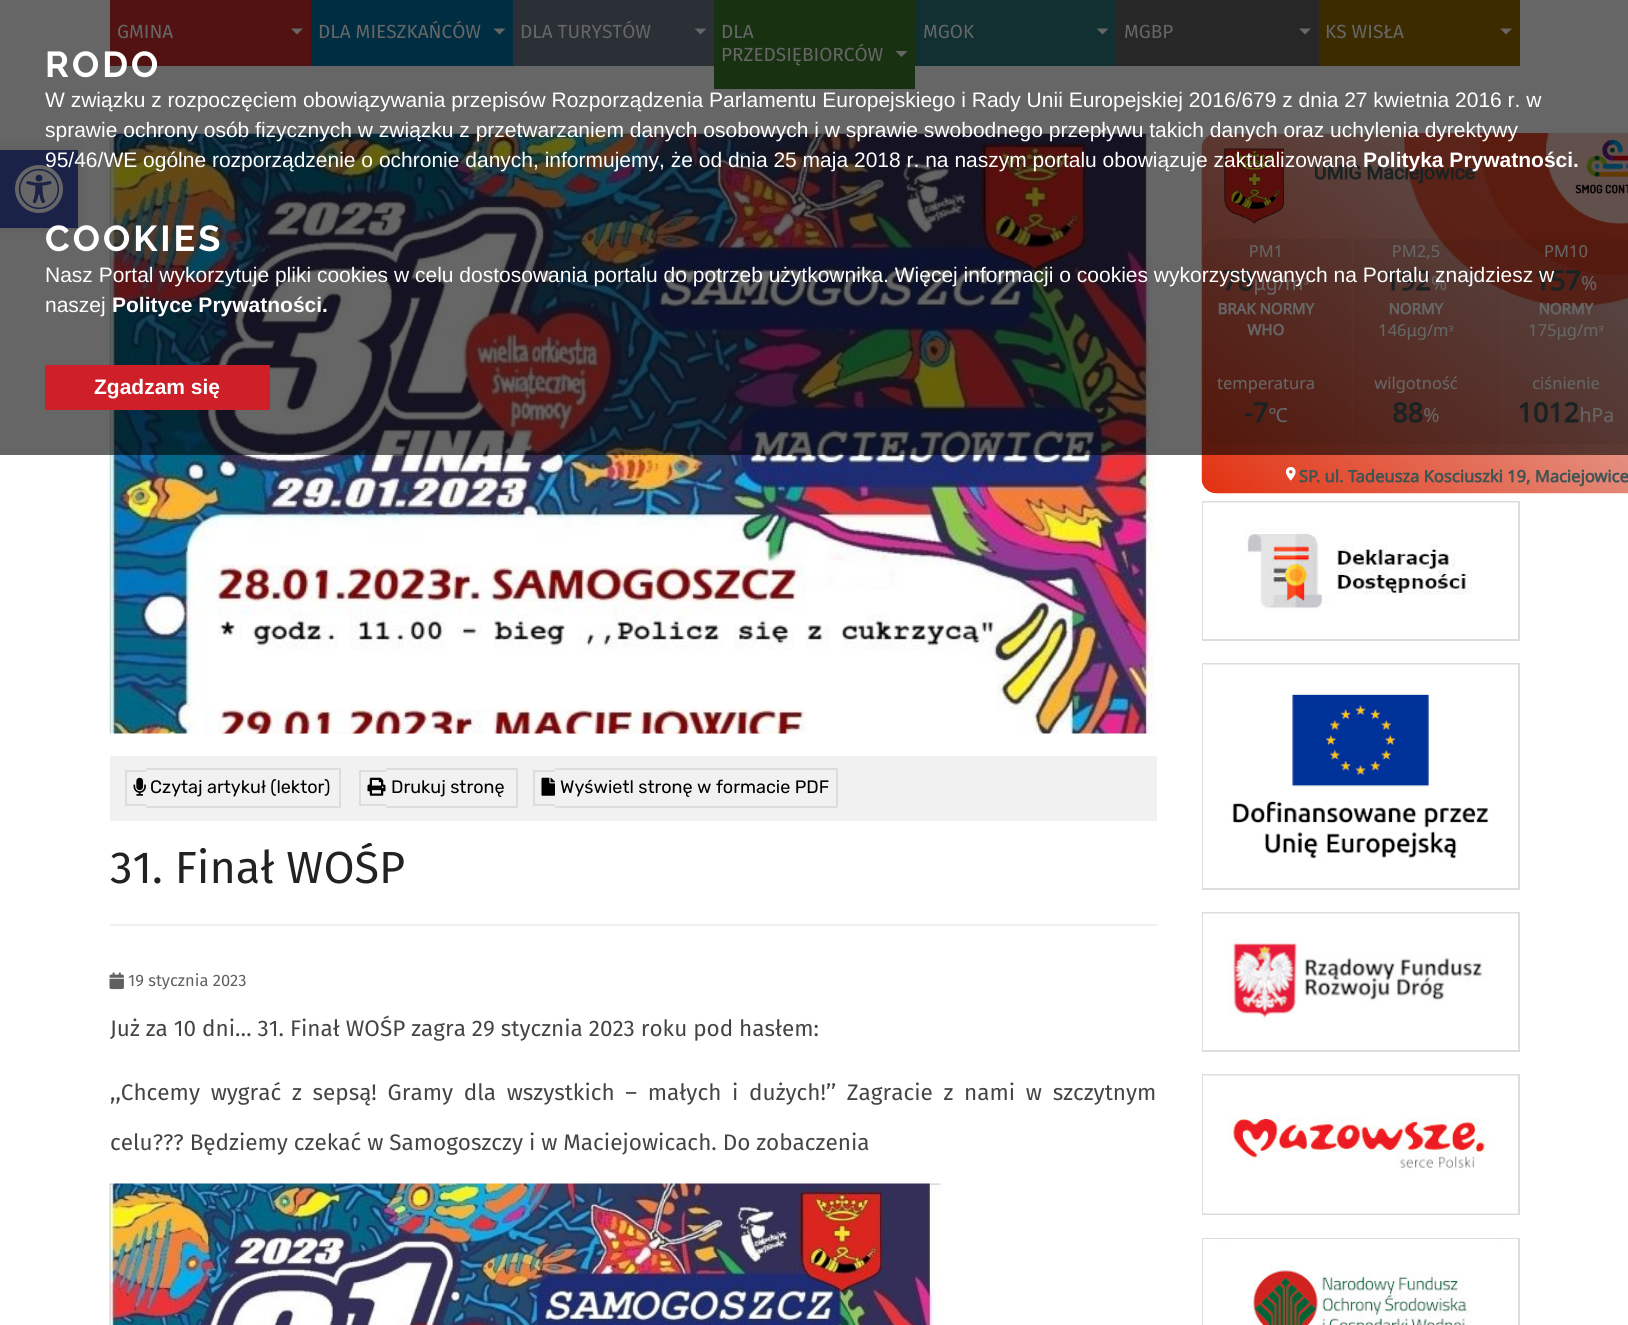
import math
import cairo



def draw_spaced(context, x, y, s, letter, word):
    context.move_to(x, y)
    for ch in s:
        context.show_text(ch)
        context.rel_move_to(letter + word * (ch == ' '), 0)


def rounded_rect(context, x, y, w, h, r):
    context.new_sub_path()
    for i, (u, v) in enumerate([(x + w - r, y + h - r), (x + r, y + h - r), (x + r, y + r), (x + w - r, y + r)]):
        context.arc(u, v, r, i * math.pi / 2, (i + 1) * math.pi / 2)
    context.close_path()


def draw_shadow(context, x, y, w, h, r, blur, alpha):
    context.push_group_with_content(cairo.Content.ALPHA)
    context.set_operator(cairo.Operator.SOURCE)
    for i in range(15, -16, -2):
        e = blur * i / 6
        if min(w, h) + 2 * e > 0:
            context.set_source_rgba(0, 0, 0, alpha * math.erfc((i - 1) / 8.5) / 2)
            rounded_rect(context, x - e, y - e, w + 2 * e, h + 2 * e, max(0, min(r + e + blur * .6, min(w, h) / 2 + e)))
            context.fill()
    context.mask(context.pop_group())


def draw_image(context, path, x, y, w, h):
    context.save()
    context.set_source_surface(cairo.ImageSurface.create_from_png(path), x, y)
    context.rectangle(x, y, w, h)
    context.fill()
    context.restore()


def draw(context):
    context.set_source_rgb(1, 1, 1)
    context.paint()
    context.set_source_rgb(204 / 255, 45 / 255, 45 / 255)
    context.rectangle(110, 0, 201, 66)
    context.fill()
    context.set_source_rgb(1, 1, 1)
    context.new_path()
    context.move_to(291, 28.5)
    context.line_to(303, 28.5)
    context.line_to(297, 34.5)
    context.close_path()
    context.fill()
    context.set_source_rgb(0, 113 / 255, 162 / 255)
    context.rectangle(311, 0, 202, 66)
    context.fill()
    context.set_source_rgb(1, 1, 1)
    context.new_path()
    context.move_to(493.5, 28.5)
    context.line_to(505.5, 28.5)
    context.line_to(499.5, 34.5)
    context.close_path()
    context.fill()
    context.set_source_rgb(104 / 255, 120 / 255, 134 / 255)
    context.rectangle(513, 0, 201, 66)
    context.fill()
    context.set_source_rgb(1, 1, 1)
    context.new_path()
    context.move_to(694.5, 28.5)
    context.line_to(706.5, 28.5)
    context.line_to(700.5, 34.5)
    context.close_path()
    context.fill()
    context.set_source_rgb(59 / 255, 125 / 255, 43 / 255)
    context.rectangle(714, 0, 201, 89)
    context.fill()
    context.set_source_rgb(1, 1, 1)
    context.new_path()
    context.move_to(895.5, 51)
    context.line_to(907.5, 51)
    context.line_to(901.5, 57)
    context.close_path()
    context.fill()
    context.set_source_rgb(45 / 255, 121 / 255, 124 / 255)
    context.rectangle(915, 0, 201, 66)
    context.fill()
    context.set_source_rgb(1, 1, 1)
    context.new_path()
    context.move_to(1096.5, 28.5)
    context.line_to(1108.5, 28.5)
    context.line_to(1102.5, 34.5)
    context.close_path()
    context.fill()
    context.set_source_rgb(97 / 255, 97 / 255, 97 / 255)
    context.rectangle(1116, 0, 203, 66)
    context.fill()
    context.set_source_rgb(1, 1, 1)
    context.new_path()
    context.move_to(1299, 28.5)
    context.line_to(1311, 28.5)
    context.line_to(1305, 34.5)
    context.close_path()
    context.fill()
    context.set_source_rgb(153 / 255, 107 / 255, 0)
    context.rectangle(1319, 0, 201, 66)
    context.fill()
    context.set_source_rgb(1, 1, 1)
    context.new_path()
    context.move_to(1500, 28.5)
    context.line_to(1512, 28.5)
    context.line_to(1506, 34.5)
    context.close_path()
    context.fill()
    context.set_source_rgb(0, 0, 0)
    draw_shadow(context, 0, 150, 78, 78, 0, 7.5, 0.1)
    context.set_source_rgb(64 / 255, 84 / 255, 178 / 255)
    context.rectangle(0, 150, 78, 78)
    context.fill()
    draw_image(context, "images/1.png", 15, 165, 48, 48)
    draw_image(context, "images/2.png", 109, 133, 1048, 601)
    context.set_source_rgb(241 / 255, 241 / 255, 241 / 255)
    context.rectangle(110, 756, 1047, 65)
    context.fill()
    context.set_source_rgb(221 / 255, 221 / 255, 221 / 255)
    context.rectangle(125, 770, 21, 2)
    context.fill()
    context.rectangle(125, 804, 21, 2)
    context.fill()
    context.rectangle(125, 770, 2, 36)
    context.fill()
    context.rectangle(146, 768, 195, 2)
    context.fill()
    context.rectangle(339, 768, 2, 39)
    context.fill()
    context.rectangle(146, 806, 195, 2)
    context.fill()
    draw_image(context, "images/3.png", 133, 777, 13, 19)
    context.rectangle(359, 770, 27, 2)
    context.fill()
    context.rectangle(359, 804, 27, 2)
    context.fill()
    context.rectangle(359, 770, 2, 36)
    context.fill()
    context.rectangle(386, 768, 132, 2)
    context.fill()
    context.rectangle(386, 806, 118, 2)
    context.fill()
    context.rectangle(516, 768, 2, 39)
    context.fill()
    context.rectangle(504, 806, 14, 2)
    context.fill()
    draw_image(context, "images/4.png", 367, 777, 19, 19)
    context.rectangle(533, 770, 22, 2)
    context.fill()
    context.rectangle(533, 804, 22, 2)
    context.fill()
    context.rectangle(533, 770, 2, 36)
    context.fill()
    context.rectangle(555, 768, 282, 2)
    context.fill()
    context.rectangle(836, 768, 2, 39)
    context.fill()
    context.rectangle(555, 806, 282, 2)
    context.fill()
    draw_image(context, "images/5.png", 541, 777, 14, 19)
    context.set_source_rgb(241 / 255, 241 / 255, 241 / 255)
    context.rectangle(110, 924, 1047, 2)
    context.fill()
    draw_image(context, "images/6.png", 109, 972, 15, 18)
    draw_image(context, "images/7.png", 109, 1183, 832, 142)
    draw_image(context, "images/8.png", 1201, 133, 427, 361)
    context.rectangle(1203, 502, 316, 138)
    context.set_source_rgb(221 / 255, 221 / 255, 221 / 255)
    context.stroke()
    draw_image(context, "images/9.png", 1203, 502, 315, 137)
    context.rectangle(1203, 664, 316, 225)
    context.stroke()
    draw_image(context, "images/10.png", 1203, 664, 315, 224)
    context.rectangle(1203, 913, 316, 138)
    context.stroke()
    draw_image(context, "images/11.png", 1203, 913, 315, 137)
    context.rectangle(1203, 1075, 316, 139)
    context.stroke()
    draw_image(context, "images/12.png", 1203, 1075, 315, 139)
    context.rectangle(1203, 1239, 316, 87)
    context.stroke()
    draw_image(context, "images/13.png", 1203, 1239, 315, 86)
    context.select_font_face("Fira Sans")
    context.set_font_size(19)
    context.set_source_rgb(1, 1, 1)
    context.move_to(117, 38)
    context.show_text("GMINA")
    context.move_to(318, 38)
    context.show_text("DLA MIESZKAŃCÓW")
    context.move_to(520, 38)
    context.show_text("DLA TURYSTÓW")
    context.move_to(721, 38)
    context.show_text("DLA")
    context.move_to(721, 61)
    context.show_text("PRZEDSIĘBIORCÓW")
    context.move_to(923, 38)
    context.show_text("MGOK")
    context.move_to(1124, 38)
    context.show_text("MGBP")
    context.move_to(1325, 38)
    context.show_text("KS WISŁA")
    context.set_source_rgba(0, 0, 0, 0.6)
    context.rectangle(0, 0, 1628, 455)
    context.fill()
    context.select_font_face("Raleway", cairo.FontSlant.NORMAL, cairo.FontWeight.BOLD)
    context.set_font_size(36)
    context.set_source_rgb(1, 1, 1)
    draw_spaced(context, 45, 77, "RODO", 3, 0)
    context.select_font_face("Liberation Sans")
    context.set_font_size(21)
    context.move_to(45, 107)
    context.show_text("W związku z rozpoczęciem obowiązywania przepisów Rozporządzenia Parlamentu Europejskiego i Rady Unii Europejskiej 2016/679 z dnia 27 kwietnia 2016 r. w")
    context.move_to(45, 137)
    context.show_text("sprawie ochrony osób fizycznych w związku z przetwarzaniem danych osobowych i w sprawie swobodnego przepływu takich danych oraz uchylenia dyrektywy")
    context.move_to(45, 167)
    context.show_text("95/46/WE ogólne rozporządzenie o ochronie danych, informujemy, że od dnia 25 maja 2018 r. na naszym portalu obowiązuje zaktualizowana")
    context.select_font_face("Liberation Sans", cairo.FontSlant.NORMAL, cairo.FontWeight.BOLD)
    context.move_to(1363, 167)
    context.show_text("Polityka Prywatności.")
    context.select_font_face("Raleway", cairo.FontSlant.NORMAL, cairo.FontWeight.BOLD)
    context.set_font_size(36)
    draw_spaced(context, 45, 251, "COOKIES", 3, 0)
    context.select_font_face("Liberation Sans")
    context.set_font_size(21)
    context.move_to(45, 282)
    context.show_text("Nasz Portal wykorzytuje pliki cookies w celu dostosowania portalu do potrzeb użytkownika. Więcej informacji o cookies wykorzystywanych na Portalu znajdziesz w")
    context.move_to(45, 312)
    context.show_text("naszej")
    context.select_font_face("Liberation Sans", cairo.FontSlant.NORMAL, cairo.FontWeight.BOLD)
    context.move_to(112, 312)
    context.show_text("Polityce Prywatności.")
    context.set_source_rgb(207 / 255, 32 / 255, 41 / 255)
    context.rectangle(45, 365, 225, 45)
    context.fill()
    context.set_source_rgb(1, 1, 1)
    context.move_to(94, 394)
    context.show_text("Zgadzam się")
    context.select_font_face("Rubik")
    context.set_font_size(18)
    context.set_source_rgb(0, 0, 0)
    context.move_to(150, 793)
    context.show_text("Czytaj artykuł (lektor)")
    context.move_to(391, 793)
    context.show_text("Drukuj stronę")
    context.move_to(560, 793)
    context.show_text("Wyświetl stronę w formacie PDF")
    context.save()
    context.rectangle(110, 843, 1047, 81)
    context.clip()
    context.select_font_face("Fira Sans")
    context.set_font_size(45)
    context.set_source_rgb(34 / 255, 34 / 255, 34 / 255)
    context.move_to(110, 883)
    context.show_text("31. Finał WOŚP")
    context.restore()
    context.select_font_face("Fira Sans")
    context.set_font_size(16.5)
    context.set_source_rgb(96 / 255, 96 / 255, 96 / 255)
    context.move_to(128, 986)
    context.show_text("19 stycznia 2023")
    context.set_font_size(22.5)
    context.set_source_rgb(68 / 255, 68 / 255, 68 / 255)
    context.move_to(110, 1036)
    context.show_text("Już za 10 dni… 31. Finał WOŚP zagra 29 stycznia 2023 roku pod hasłem:")
    draw_spaced(context, 110, 1100, ",,Chcemy wygrać z sepsą! Gramy dla wszystkich – małych i dużych!’’ Zagracie z nami w szczytnym", 0, 4.75)
    context.move_to(110, 1150)
    context.show_text("celu??? Będziemy czekać w Samogoszczy i w Maciejowicach. Do zobaczenia")


surface = cairo.ImageSurface(cairo.Format.RGB24, 1628, 1325)
context = cairo.Context(surface)
options = cairo.FontOptions()
options.set_hint_metrics(cairo.HintMetrics.OFF)
options.set_hint_style(cairo.HintStyle.NONE)
context.set_font_options(options)
context.set_miter_limit(4)
draw(context)
surface.write_to_png("out.png")
